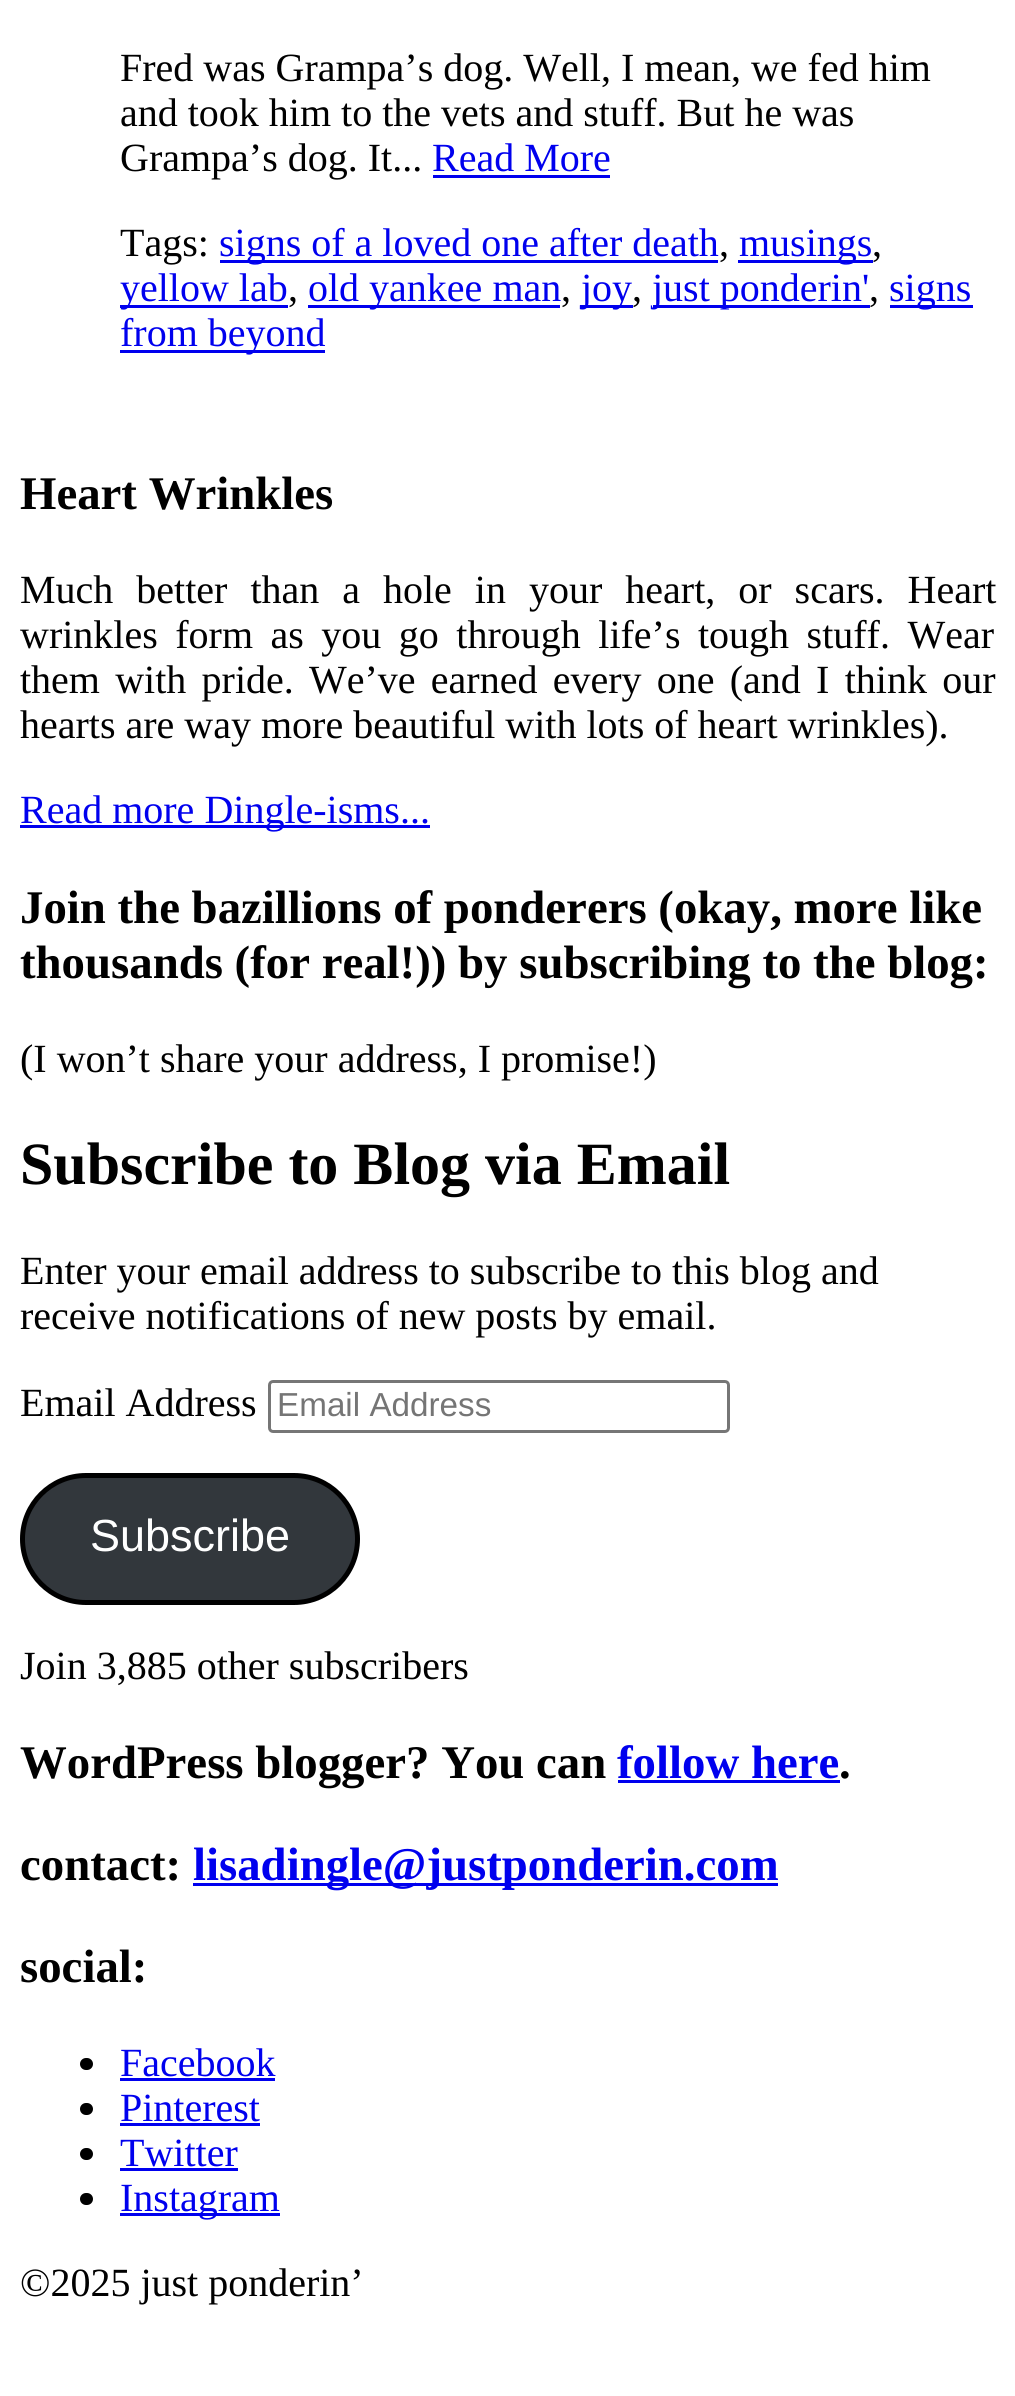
import math
import cairo



def draw_spaced(context, x, y, s, letter, word):
    context.move_to(x, y)
    for ch in s:
        context.show_text(ch)
        context.rel_move_to(letter + word * (ch == ' '), 0)


def rounded_rect(context, x, y, w, h, r):
    context.new_sub_path()
    for i, (u, v) in enumerate([(x + w - r, y + h - r), (x + r, y + h - r), (x + r, y + r), (x + w - r, y + r)]):
        context.arc(u, v, r, i * math.pi / 2, (i + 1) * math.pi / 2)
    context.close_path()


def draw(context):
    context.set_source_rgb(1, 1, 1)
    context.paint()
    context.set_source_rgb(0, 0, 238 / 255)
    context.rectangle(433, 175, 177, 3)
    context.fill()
    context.rectangle(220, 260, 498, 3)
    context.fill()
    context.rectangle(738, 260, 135, 3)
    context.fill()
    context.rectangle(120, 305, 168, 3)
    context.fill()
    context.rectangle(308, 305, 252, 3)
    context.fill()
    context.rectangle(580, 305, 53, 3)
    context.fill()
    context.rectangle(653, 305, 217, 3)
    context.fill()
    context.rectangle(890, 305, 83, 3)
    context.fill()
    context.rectangle(120, 350, 205, 3)
    context.fill()
    context.rectangle(20, 825, 410, 3)
    context.fill()
    rounded_rect(context, 269.5, 1381.5, 459, 50, 3.5)
    context.set_source_rgb(118 / 255, 118 / 255, 118 / 255)
    context.set_line_width(3)
    context.stroke()
    context.set_source_rgb(50 / 255, 55 / 255, 60 / 255)
    rounded_rect(context, 22.5, 1475.5, 335, 127, 63.5)
    context.fill_preserve()
    context.set_source_rgb(0, 0, 0)
    context.set_line_width(5)
    context.stroke()
    context.set_source_rgb(0, 0, 238 / 255)
    context.rectangle(618, 1780, 222, 3)
    context.fill()
    context.rectangle(193, 1883, 585, 3)
    context.fill()
    context.set_source_rgb(0, 0, 0)
    rounded_rect(context, 80, 2058, 13, 12, 6)
    context.fill()
    context.set_source_rgb(0, 0, 238 / 255)
    context.rectangle(120, 2078, 155, 3)
    context.fill()
    context.set_source_rgb(0, 0, 0)
    rounded_rect(context, 80, 2103, 13, 12, 6)
    context.fill()
    context.set_source_rgb(0, 0, 238 / 255)
    context.rectangle(120, 2123, 140, 3)
    context.fill()
    context.set_source_rgb(0, 0, 0)
    rounded_rect(context, 80, 2148, 13, 12, 6)
    context.fill()
    context.set_source_rgb(0, 0, 238 / 255)
    context.rectangle(120, 2168, 118, 3)
    context.fill()
    context.set_source_rgb(0, 0, 0)
    rounded_rect(context, 80, 2193, 13, 12, 6)
    context.fill()
    context.set_source_rgb(0, 0, 238 / 255)
    context.rectangle(120, 2213, 160, 3)
    context.fill()
    context.select_font_face("Liberation Serif")
    context.set_font_size(40)
    context.set_source_rgb(0, 0, 0)
    context.move_to(120, 81)
    context.show_text("Fred was Grampa’s dog. Well, I mean, we fed him")
    context.move_to(120, 126)
    context.show_text("and took him to the vets and stuff. But he was")
    context.move_to(120, 171)
    context.show_text("Grampa’s dog. It...")
    context.set_source_rgb(0, 0, 238 / 255)
    context.move_to(432, 171)
    context.show_text("Read More")
    context.set_source_rgb(0, 0, 0)
    context.move_to(120, 256)
    context.show_text("Tags:")
    context.set_source_rgb(0, 0, 238 / 255)
    context.move_to(219, 256)
    context.show_text("signs of a loved one after death")
    context.set_source_rgb(0, 0, 0)
    context.move_to(719, 256)
    context.show_text(",")
    context.set_source_rgb(0, 0, 238 / 255)
    context.move_to(739, 256)
    context.show_text("musings")
    context.set_source_rgb(0, 0, 0)
    context.move_to(872, 256)
    context.show_text(",")
    context.set_source_rgb(0, 0, 238 / 255)
    context.move_to(120, 301)
    context.show_text("yellow lab")
    context.set_source_rgb(0, 0, 0)
    context.move_to(288, 301)
    context.show_text(",")
    context.set_source_rgb(0, 0, 238 / 255)
    context.move_to(308, 301)
    context.show_text("old yankee man")
    context.set_source_rgb(0, 0, 0)
    context.move_to(561, 301)
    context.show_text(",")
    context.set_source_rgb(0, 0, 238 / 255)
    context.move_to(581, 301)
    context.show_text("joy")
    context.set_source_rgb(0, 0, 0)
    context.move_to(632, 301)
    context.show_text(",")
    context.set_source_rgb(0, 0, 238 / 255)
    context.move_to(652, 301)
    context.show_text("just ponderin'")
    context.set_source_rgb(0, 0, 0)
    context.move_to(869, 301)
    context.show_text(",")
    context.set_source_rgb(0, 0, 238 / 255)
    context.move_to(889, 301)
    context.show_text("signs")
    context.move_to(120, 346)
    context.show_text("from beyond")
    context.select_font_face("Liberation Serif", cairo.FontSlant.NORMAL, cairo.FontWeight.BOLD)
    context.set_font_size(46.8)
    context.set_source_rgb(0, 0, 0)
    context.move_to(20, 509)
    context.show_text("Heart Wrinkles")
    context.select_font_face("Liberation Serif")
    context.set_font_size(40)
    draw_spaced(context, 20, 603, "Much better than a hole in your heart, or scars. Heart", 0, 13)
    draw_spaced(context, 20, 648, "wrinkles form as you go through life’s tough stuff. Wear", 0, 7.5)
    draw_spaced(context, 20, 693, "them with pride. We’ve earned every one (and I think our", 0, 5.25)
    context.move_to(20, 738)
    context.show_text("hearts are way more beautiful with lots of heart wrinkles).")
    context.set_source_rgb(0, 0, 238 / 255)
    context.move_to(20, 823)
    context.show_text("Read more Dingle-isms...")
    context.select_font_face("Liberation Serif", cairo.FontSlant.NORMAL, cairo.FontWeight.BOLD)
    context.set_font_size(46.8)
    context.set_source_rgb(0, 0, 0)
    context.move_to(20, 923)
    context.show_text("Join the bazillions of ponderers (okay, more like")
    context.move_to(20, 978)
    context.show_text("thousands (for real!)) by subscribing to the blog:")
    context.select_font_face("Liberation Serif")
    context.set_font_size(40)
    context.move_to(20, 1072)
    context.show_text("(I won’t share your address, I promise!)")
    context.select_font_face("Liberation Serif", cairo.FontSlant.NORMAL, cairo.FontWeight.BOLD)
    context.set_font_size(60)
    context.move_to(20, 1184)
    context.show_text("Subscribe to Blog via Email")
    context.select_font_face("Liberation Serif")
    context.set_font_size(40)
    context.move_to(20, 1284)
    context.show_text("Enter your email address to subscribe to this blog and")
    context.move_to(20, 1329)
    context.show_text("receive notifications of new posts by email.")
    context.move_to(20, 1416)
    context.show_text("Email Address")
    context.select_font_face("Liberation Sans")
    context.set_font_size(33.25)
    context.set_source_rgb(117 / 255, 117 / 255, 117 / 255)
    context.move_to(277, 1416)
    context.show_text("Email Address")
    context.set_font_size(45)
    context.set_source_rgb(1, 1, 1)
    context.move_to(90, 1551)
    context.show_text("Subscribe")
    context.select_font_face("Liberation Serif")
    context.set_font_size(40)
    context.set_source_rgb(0, 0, 0)
    context.move_to(20, 1679)
    context.show_text("Join 3,885 other subscribers")
    context.select_font_face("Liberation Serif", cairo.FontSlant.NORMAL, cairo.FontWeight.BOLD)
    context.set_font_size(46.8)
    context.move_to(20, 1778)
    context.show_text("WordPress blogger? You can")
    context.set_source_rgb(0, 0, 238 / 255)
    context.move_to(617, 1778)
    context.show_text("follow here")
    context.set_source_rgb(0, 0, 0)
    context.move_to(839, 1778)
    context.show_text(".")
    context.move_to(20, 1880)
    context.show_text("contact:")
    context.set_source_rgb(0, 0, 238 / 255)
    context.move_to(193, 1880)
    context.show_text("lisadingle@justponderin.com")
    context.set_source_rgb(0, 0, 0)
    context.move_to(20, 1982)
    context.show_text("social:")
    context.select_font_face("Liberation Serif")
    context.set_font_size(40)
    context.set_source_rgb(0, 0, 238 / 255)
    context.move_to(120, 2076)
    context.show_text("Facebook")
    context.move_to(120, 2121)
    context.show_text("Pinterest")
    context.move_to(120, 2166)
    context.show_text("Twitter")
    context.move_to(120, 2211)
    context.show_text("Instagram")
    context.set_source_rgb(0, 0, 0)
    context.move_to(20, 2296)
    context.show_text("©2025 just ponderin’")


surface = cairo.ImageSurface(cairo.Format.RGB24, 1015, 2396)
context = cairo.Context(surface)
options = cairo.FontOptions()
options.set_hint_metrics(cairo.HintMetrics.OFF)
options.set_hint_style(cairo.HintStyle.NONE)
context.set_font_options(options)
context.set_miter_limit(4)
draw(context)
surface.write_to_png("out.png")
